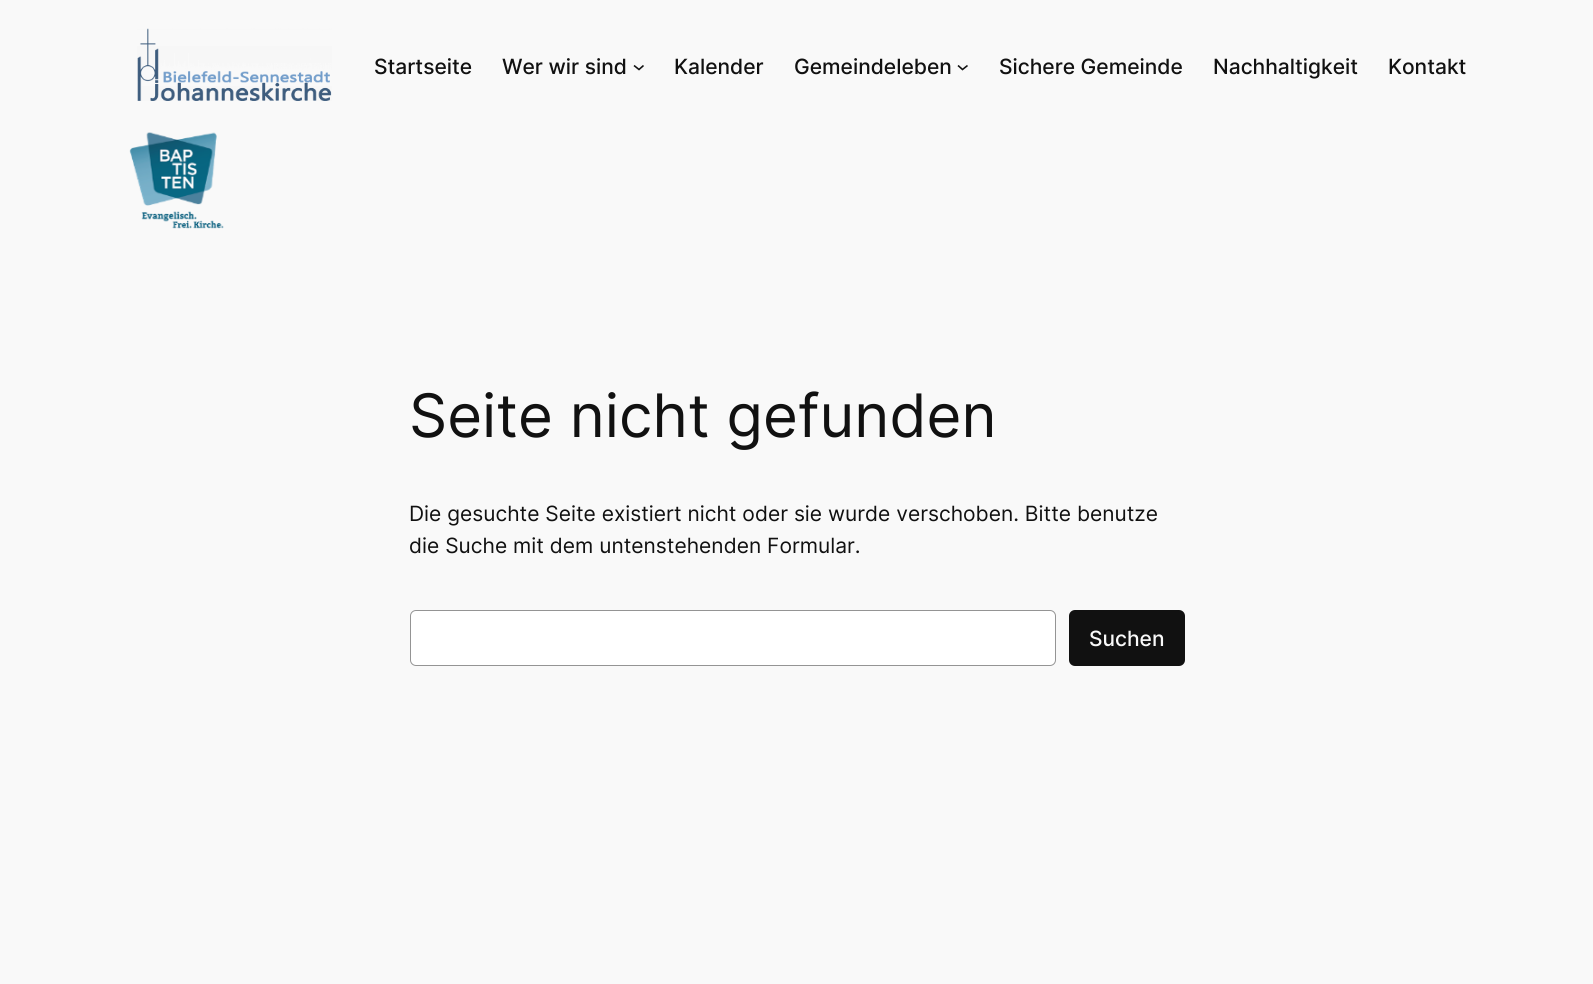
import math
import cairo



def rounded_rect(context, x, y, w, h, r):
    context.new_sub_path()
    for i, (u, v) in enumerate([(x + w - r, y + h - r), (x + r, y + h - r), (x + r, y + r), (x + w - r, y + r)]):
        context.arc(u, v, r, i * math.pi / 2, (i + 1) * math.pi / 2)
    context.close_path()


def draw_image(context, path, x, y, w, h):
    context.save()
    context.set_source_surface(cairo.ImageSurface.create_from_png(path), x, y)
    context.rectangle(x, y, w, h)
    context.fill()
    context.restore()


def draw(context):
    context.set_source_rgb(249 / 255, 249 / 255, 249 / 255)
    context.paint()
    draw_image(context, "images/1.png", 137, 28, 195, 73)
    context.new_path()
    context.move_to(634, 65.5)
    context.line_to(639, 69.5)
    context.line_to(643.5, 65.5)
    context.set_source_rgb(17 / 255, 17 / 255, 17 / 255)
    context.set_line_width(1.6)
    context.stroke()
    context.new_path()
    context.move_to(958, 65.5)
    context.line_to(962.5, 69.5)
    context.line_to(967.5, 65.5)
    context.stroke()
    draw_image(context, "images/2.png", 129, 132, 95, 97)
    context.set_source_rgb(1, 1, 1)
    rounded_rect(context, 410.5, 610.5, 645, 55, 5.5)
    context.fill_preserve()
    context.set_source_rgb(148 / 255, 148 / 255, 148 / 255)
    context.set_line_width(1)
    context.stroke()
    context.set_source_rgb(17 / 255, 17 / 255, 17 / 255)
    rounded_rect(context, 1069, 610, 116, 56, 6)
    context.fill()
    context.select_font_face("Inter Medium")
    context.set_font_size(21)
    context.move_to(374, 74)
    context.show_text("Startseite")
    context.move_to(502, 74)
    context.show_text("Wer wir sind")
    context.move_to(674, 74)
    context.show_text("Kalender")
    context.move_to(794, 74)
    context.show_text("Gemeindeleben")
    context.move_to(999, 74)
    context.show_text("Sichere Gemeinde")
    context.move_to(1213, 74)
    context.show_text("Nachhaltigkeit")
    context.move_to(1388, 74)
    context.show_text("Kontakt")
    context.select_font_face("Inter")
    context.set_font_size(59.9)
    context.move_to(409, 437)
    context.show_text("Seite nicht gefunden")
    context.set_font_size(21)
    context.move_to(409, 521)
    context.show_text("Die gesuchte Seite existiert nicht oder sie wurde verschoben. Bitte benutze")
    context.move_to(409, 553)
    context.show_text("die Suche mit dem untenstehenden Formular.")
    context.select_font_face("Inter Medium")
    context.set_source_rgb(249 / 255, 249 / 255, 249 / 255)
    context.move_to(1089, 646)
    context.show_text("Suchen")


surface = cairo.ImageSurface(cairo.Format.RGB24, 1593, 984)
context = cairo.Context(surface)
options = cairo.FontOptions()
options.set_hint_metrics(cairo.HintMetrics.OFF)
options.set_hint_style(cairo.HintStyle.NONE)
context.set_font_options(options)
context.set_miter_limit(4)
draw(context)
surface.write_to_png("out.png")
